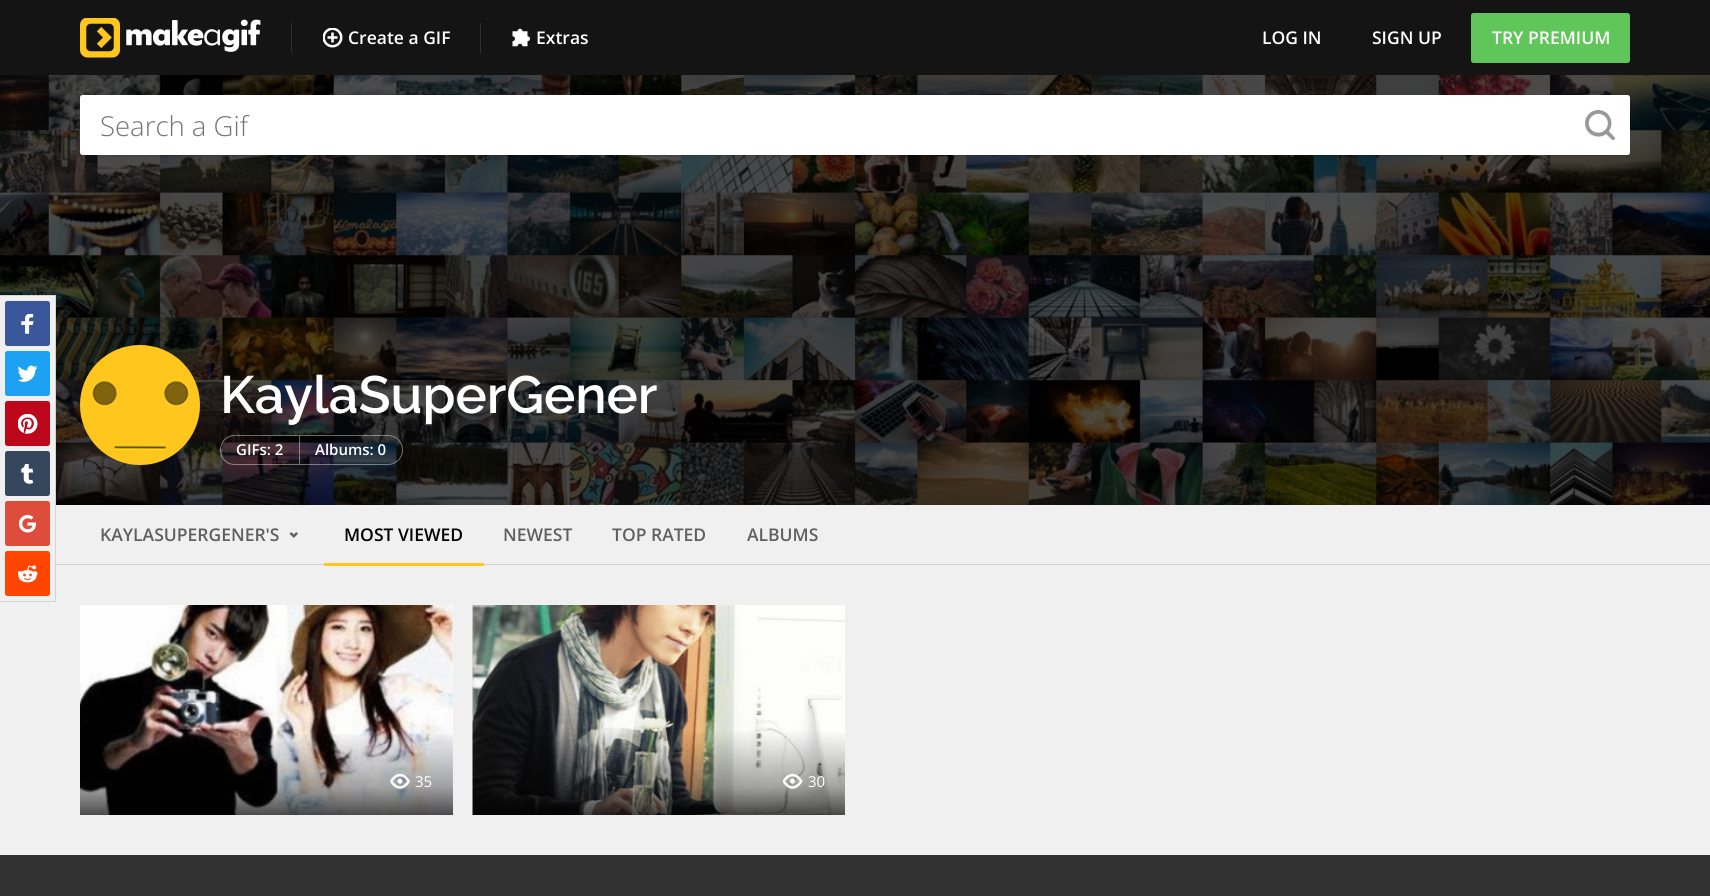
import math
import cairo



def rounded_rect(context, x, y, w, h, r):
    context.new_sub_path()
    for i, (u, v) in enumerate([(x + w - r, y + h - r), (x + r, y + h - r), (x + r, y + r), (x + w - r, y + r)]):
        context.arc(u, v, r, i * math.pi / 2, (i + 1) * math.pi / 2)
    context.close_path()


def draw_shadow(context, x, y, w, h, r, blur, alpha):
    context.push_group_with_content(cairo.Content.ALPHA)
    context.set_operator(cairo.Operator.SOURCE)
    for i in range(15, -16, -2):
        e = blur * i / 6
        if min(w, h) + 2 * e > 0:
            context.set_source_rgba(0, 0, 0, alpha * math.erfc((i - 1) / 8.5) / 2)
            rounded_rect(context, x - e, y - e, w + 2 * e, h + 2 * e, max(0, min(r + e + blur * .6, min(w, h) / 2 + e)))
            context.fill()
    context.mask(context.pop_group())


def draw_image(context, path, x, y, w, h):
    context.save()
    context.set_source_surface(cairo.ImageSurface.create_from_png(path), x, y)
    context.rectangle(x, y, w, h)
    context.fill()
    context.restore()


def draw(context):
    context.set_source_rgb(240 / 255, 240 / 255, 240 / 255)
    context.paint()
    context.set_source_rgb(20 / 255, 20 / 255, 20 / 255)
    context.rectangle(0, 0, 1710, 75)
    context.fill()
    draw_image(context, "images/1.png", 80, 18, 181, 40)
    context.set_source_rgb(48 / 255, 48 / 255, 48 / 255)
    context.rectangle(291, 23, 1, 30)
    context.fill()
    draw_image(context, "images/2.png", 323, 28, 20, 20)
    context.rectangle(480, 23, 1, 30)
    context.fill()
    draw_image(context, "images/3.png", 512, 28, 18, 19)
    context.set_source_rgb(96 / 255, 198 / 255, 89 / 255)
    rounded_rect(context, 1471, 13, 159, 50, 2.5)
    context.fill()
    draw_image(context, "images/10.png", 0, 75, 1710, 430)
    context.set_source_rgb(240 / 255, 240 / 255, 240 / 255)
    context.rectangle(0, 295, 56, 210)
    context.fill()
    context.set_source_rgb(211 / 255, 211 / 255, 211 / 255)
    context.new_path()
    context.move_to(0, 295)
    context.line_to(56, 295)
    context.line_to(55, 296)
    context.line_to(0, 296)
    context.close_path()
    context.fill()
    context.set_source_rgba(0, 0, 0, 0.12)
    context.new_path()
    context.move_to(56, 295)
    context.line_to(56, 602)
    context.line_to(55, 601)
    context.line_to(55, 296)
    context.close_path()
    context.fill()
    context.new_path()
    context.move_to(56, 602)
    context.line_to(0, 602)
    context.line_to(0, 601)
    context.line_to(55, 601)
    context.close_path()
    context.fill()
    context.set_source_rgb(57 / 255, 87 / 255, 154 / 255)
    rounded_rect(context, 5, 301, 45, 45, 2.5)
    context.fill()
    draw_image(context, "images/4.png", 21, 314, 13, 20)
    context.set_source_rgb(29 / 255, 161 / 255, 242 / 255)
    rounded_rect(context, 5, 351, 45, 45, 2.5)
    context.fill()
    draw_image(context, "images/5.png", 18, 365, 20, 17)
    context.set_source_rgb(189 / 255, 8 / 255, 28 / 255)
    rounded_rect(context, 5, 401, 45, 45, 2.5)
    context.fill()
    draw_image(context, "images/6.png", 18, 414, 20, 20)
    context.set_source_rgb(53 / 255, 70 / 255, 93 / 255)
    rounded_rect(context, 5, 451, 45, 45, 2.5)
    context.fill()
    draw_image(context, "images/7.png", 21, 464, 13, 20)
    context.set_source_rgb(222 / 255, 77 / 255, 59 / 255)
    rounded_rect(context, 5, 501, 45, 45, 2.5)
    context.fill()
    draw_image(context, "images/8.png", 18, 515, 18, 18)
    context.set_source_rgb(1, 69 / 255, 0)
    rounded_rect(context, 5, 551, 45, 45, 2.5)
    context.fill()
    draw_image(context, "images/9.png", 18, 565, 20, 18)
    context.set_source_rgb(0, 0, 0)
    draw_shadow(context, 83, 101, 1545, 55, 0, 0.5, 0.15)
    context.set_source_rgb(1, 1, 1)
    rounded_rect(context, 80, 95, 1550, 60, 2.5)
    context.fill()
    draw_image(context, "images/11.png", 1585, 110, 30, 30)
    draw_image(context, "images/12.png", 80, 345, 120, 120)
    context.set_source_rgba(1, 1, 1, 0.4)
    context.set_fill_rule(cairo.FillRule.EVEN_ODD)
    context.new_path()
    context.move_to(235, 435)
    context.line_to(299, 435)
    context.line_to(299, 465)
    context.line_to(235, 465)
    context.curve_to(215, 465, 215, 435, 235, 435)
    context.close_path()
    context.move_to(235, 436)
    context.line_to(299, 436)
    context.line_to(299, 464)
    context.line_to(235, 464)
    context.curve_to(227, 464, 221, 458, 221, 450)
    context.curve_to(221, 442, 227, 436, 235, 436)
    context.close_path()
    context.fill()
    context.new_path()
    context.move_to(299.5, 435.5)
    context.line_to(388, 435.5)
    context.curve_to(396, 435.5, 402.5, 442, 402.5, 450)
    context.curve_to(402.5, 458, 396, 464.5, 388, 464.5)
    context.line_to(299.5, 464.5)
    context.close_path()
    context.set_line_width(1)
    context.stroke()
    context.set_source_rgb(211 / 255, 211 / 255, 211 / 255)
    context.rectangle(56, 564, 1654, 1)
    context.fill()
    draw_image(context, "images/13.png", 289, 532, 9, 6)
    context.set_source_rgb(1, 198 / 255, 30 / 255)
    context.rectangle(324, 563, 160, 3)
    context.fill()
    context.set_source_rgb(1, 1, 1)
    context.rectangle(452, 605, 1, 210)
    context.fill()
    draw_image(context, "images/14.png", 80, 605, 373, 210)
    gradient = cairo.LinearGradient(266, 815, 266, 730)
    gradient.add_color_stop_rgba(0, 0, 0, 0, 0.7)
    gradient.add_color_stop_rgba(0.33, 0, 0, 0, 0.35)
    gradient.add_color_stop_rgba(1, 0, 0, 0, 0)
    context.set_source(gradient)
    context.rectangle(80, 734, 373, 81)
    context.fill()
    draw_image(context, "images/15.png", 390, 773, 20, 16)
    draw_image(context, "images/16.png", 472, 605, 373, 210)
    draw_image(context, "images/17.png", 783, 773, 20, 16)
    context.set_source_rgb(50 / 255, 50 / 255, 50 / 255)
    context.rectangle(0, 855, 1710, 41)
    context.fill()
    context.select_font_face("Open Sans SemiBold")
    context.set_font_size(17.5)
    context.set_source_rgb(1, 1, 1)
    context.move_to(348, 44)
    context.show_text("Create a GIF")
    context.move_to(536, 44)
    context.show_text("Extras")
    context.move_to(1262, 44)
    context.show_text("LOG IN")
    context.move_to(1372, 44)
    context.show_text("SIGN UP")
    context.move_to(1492, 44)
    context.show_text("TRY PREMIUM")
    context.select_font_face("Open Sans Light")
    context.set_font_size(27.5)
    context.set_source_rgb(117 / 255, 117 / 255, 117 / 255)
    context.move_to(100, 136)
    context.show_text("Search a Gif")
    context.select_font_face("Raleway SemiBold")
    context.set_font_size(52.5)
    context.set_source_rgb(1, 1, 1)
    context.move_to(220, 413)
    context.show_text("KaylaSuperGener")
    context.select_font_face("Open Sans SemiBold")
    context.set_font_size(15)
    context.move_to(236, 455)
    context.show_text("GIFs: 2")
    context.move_to(315, 455)
    context.show_text("Albums: 0")
    context.set_font_size(17.5)
    context.set_source_rgb(96 / 255, 96 / 255, 96 / 255)
    context.move_to(100, 541)
    context.show_text("KAYLASUPERGENER'S")
    context.set_source_rgb(0, 0, 0)
    context.move_to(344, 541)
    context.show_text("MOST VIEWED")
    context.set_source_rgb(96 / 255, 96 / 255, 96 / 255)
    context.move_to(503, 541)
    context.show_text("NEWEST")
    context.move_to(612, 541)
    context.show_text("TOP RATED")
    context.move_to(747, 541)
    context.show_text("ALBUMS")
    context.select_font_face("Open Sans")
    context.set_font_size(15)
    context.set_source_rgb(1, 1, 1)
    context.move_to(415, 787)
    context.show_text("35")
    context.move_to(808, 787)
    context.show_text("30")


surface = cairo.ImageSurface(cairo.Format.RGB24, 1710, 896)
context = cairo.Context(surface)
options = cairo.FontOptions()
options.set_hint_metrics(cairo.HintMetrics.OFF)
options.set_hint_style(cairo.HintStyle.NONE)
context.set_font_options(options)
context.set_miter_limit(4)
draw(context)
surface.write_to_png("out.png")
